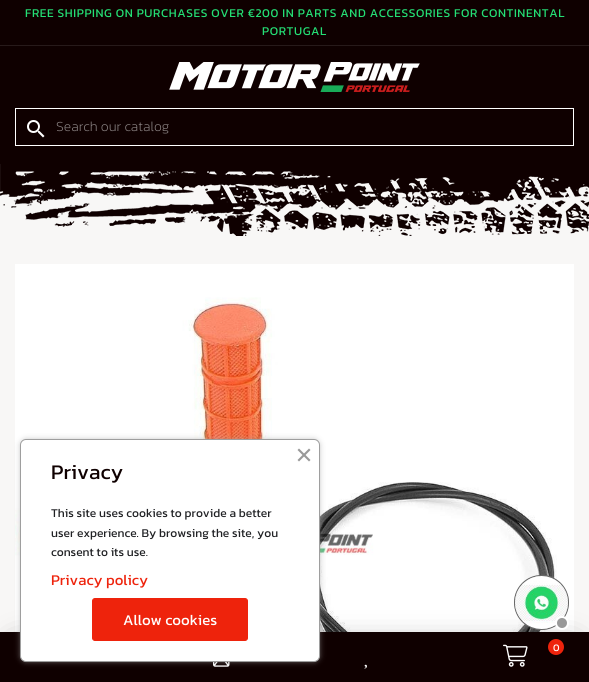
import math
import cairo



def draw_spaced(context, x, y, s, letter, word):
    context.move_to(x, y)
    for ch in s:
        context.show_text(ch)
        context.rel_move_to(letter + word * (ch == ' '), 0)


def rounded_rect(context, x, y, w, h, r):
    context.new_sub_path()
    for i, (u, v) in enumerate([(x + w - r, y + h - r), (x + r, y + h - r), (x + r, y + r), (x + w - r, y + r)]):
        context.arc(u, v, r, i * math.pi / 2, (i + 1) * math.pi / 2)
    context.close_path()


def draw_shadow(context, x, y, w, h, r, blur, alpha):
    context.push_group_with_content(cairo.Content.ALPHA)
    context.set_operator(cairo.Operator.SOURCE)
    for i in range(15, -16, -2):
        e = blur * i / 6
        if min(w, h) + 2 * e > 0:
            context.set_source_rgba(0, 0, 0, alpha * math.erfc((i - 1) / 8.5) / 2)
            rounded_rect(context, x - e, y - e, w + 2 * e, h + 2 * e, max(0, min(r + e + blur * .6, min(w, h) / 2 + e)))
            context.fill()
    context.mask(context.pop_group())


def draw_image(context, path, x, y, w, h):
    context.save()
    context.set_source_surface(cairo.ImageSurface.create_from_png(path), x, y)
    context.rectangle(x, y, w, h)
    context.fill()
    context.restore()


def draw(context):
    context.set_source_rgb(248 / 255, 247 / 255, 246 / 255)
    context.paint()
    context.set_source_rgb(15 / 255, 0, 0)
    context.rectangle(0, 0, 589, 164)
    context.fill()
    context.set_source_rgb(39 / 255, 26 / 255, 26 / 255)
    context.rectangle(0, 45, 589, 1)
    context.fill()
    draw_image(context, "images/1.png", 169, 62, 251, 30)
    context.rectangle(15.5, 108.5, 558, 37)
    context.set_source_rgb(1, 1, 1)
    context.set_line_width(1)
    context.stroke()
    draw_image(context, "images/2.png", 27, 120, 18, 18)
    draw_image(context, "images/3.png", 0, 164, 589, 72)
    context.rectangle(15, 264, 559, 368)
    context.fill()
    draw_image(context, "images/7.png", 15, 297, 542, 335)
    context.set_source_rgb(0, 0, 0)
    draw_shadow(context, 15, 647, 559, 20, 0, 15, 0.5)
    context.set_source_rgb(15 / 255, 0, 0)
    context.rectangle(0, 632, 589, 50)
    context.fill()
    draw_image(context, "images/4.png", 503, 644, 25, 23)
    context.set_source_rgb(238 / 255, 35 / 255, 12 / 255)
    context.arc(556, 647, 8, 0, 2 * math.pi)
    context.fill()
    draw_image(context, "images/5.png", 213, 662, 17, 5)
    draw_image(context, "images/6.png", 364, 664, 3, 5)
    context.set_source_rgba(153 / 255, 153 / 255, 153 / 255, 0.25)
    context.arc(541.5, 602.5, 27.5, 0, 2 * math.pi)
    context.fill()
    context.arc(541.5, 602.5, 27.5, 0, 2 * math.pi)
    context.fill()
    context.arc(541.5, 602.5, 27, 0, 2 * math.pi)
    context.fill_preserve()
    context.set_source_rgb(102 / 255, 102 / 255, 102 / 255)
    context.stroke()
    draw_image(context, "images/8.png", 515, 576, 53, 53)
    context.set_source_rgb(153 / 255, 153 / 255, 153 / 255)
    context.arc(562, 623, 6, 0, 2 * math.pi)
    context.fill_preserve()
    context.set_source_rgb(1, 1, 1)
    context.set_line_width(2)
    context.stroke()
    context.set_source_rgb(158 / 255, 158 / 255, 158 / 255)
    draw_shadow(context, 22, 441, 296, 219, 4, 3.5, 1)
    context.set_source_rgb(1, 1, 1)
    rounded_rect(context, 20.5, 439.5, 299, 222, 5.5)
    context.fill_preserve()
    context.set_source_rgb(158 / 255, 158 / 255, 158 / 255)
    context.set_line_width(1)
    context.stroke()
    context.set_source_rgb(153 / 255, 153 / 255, 153 / 255)
    context.new_path()
    context.move_to(297.5, 460)
    context.line_to(309, 448.5)
    context.line_to(310.5, 450)
    context.line_to(299, 461.5)
    context.close_path()
    context.fill()
    context.new_path()
    context.move_to(299, 448.5)
    context.line_to(310.5, 460)
    context.line_to(309, 461.5)
    context.line_to(297.5, 450)
    context.close_path()
    context.fill()
    context.set_source_rgb(238 / 255, 35 / 255, 12 / 255)
    rounded_rect(context, 92.5, 598.5, 155, 42, 2.5)
    context.fill_preserve()
    context.stroke()
    context.select_font_face("Kanit")
    context.set_font_size(12)
    context.set_source_rgb(36 / 255, 223 / 255, 117 / 255)
    draw_spaced(context, 25, 17, "FREE SHIPPING ON PURCHASES OVER €200 IN PARTS AND ACCESSORIES FOR CONTINENTAL", 0.6, 0)
    draw_spaced(context, 262, 35, "PORTUGAL", 0.6, 0)
    context.select_font_face("Kanit ExtraLight")
    context.set_font_size(14)
    context.set_source_rgb(145 / 255, 138 / 255, 138 / 255)
    context.move_to(56, 131)
    context.show_text("Search our catalog")
    context.select_font_face("Kanit")
    context.set_font_size(10)
    context.set_source_rgb(1, 1, 1)
    context.move_to(553, 651)
    context.show_text("0")
    context.set_font_size(21)
    context.set_source_rgb(15 / 255, 0, 0)
    context.move_to(51, 479)
    context.show_text("Privacy")
    context.set_font_size(12)
    context.set_source_rgb(32 / 255, 33 / 255, 36 / 255)
    context.move_to(51, 517)
    context.show_text("This site uses cookies to provide a better")
    context.move_to(51, 537)
    context.show_text("user experience. By browsing the site, you")
    context.move_to(51, 556)
    context.show_text("consent to its use.")
    context.set_font_size(15)
    context.set_source_rgb(238 / 255, 35 / 255, 12 / 255)
    context.move_to(51, 585)
    context.show_text("Privacy policy")
    context.set_source_rgb(1, 1, 1)
    context.move_to(123, 625)
    context.show_text("Allow cookies")


surface = cairo.ImageSurface(cairo.Format.RGB24, 589, 682)
context = cairo.Context(surface)
options = cairo.FontOptions()
options.set_hint_metrics(cairo.HintMetrics.OFF)
options.set_hint_style(cairo.HintStyle.NONE)
context.set_font_options(options)
context.set_miter_limit(4)
draw(context)
surface.write_to_png("out.png")
